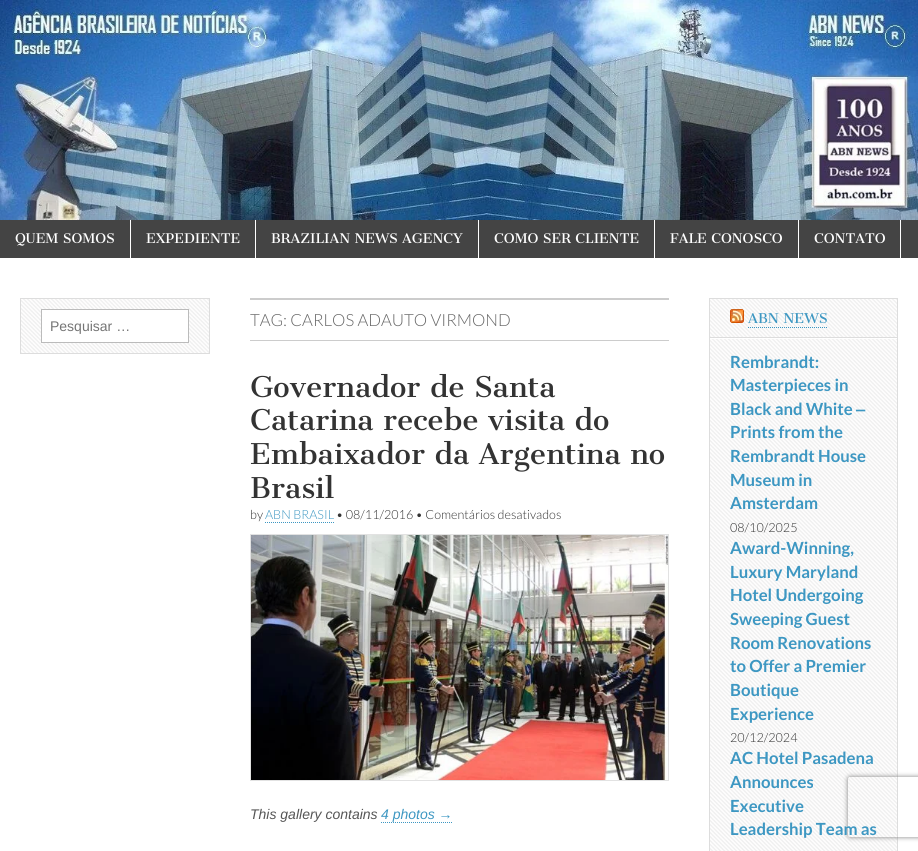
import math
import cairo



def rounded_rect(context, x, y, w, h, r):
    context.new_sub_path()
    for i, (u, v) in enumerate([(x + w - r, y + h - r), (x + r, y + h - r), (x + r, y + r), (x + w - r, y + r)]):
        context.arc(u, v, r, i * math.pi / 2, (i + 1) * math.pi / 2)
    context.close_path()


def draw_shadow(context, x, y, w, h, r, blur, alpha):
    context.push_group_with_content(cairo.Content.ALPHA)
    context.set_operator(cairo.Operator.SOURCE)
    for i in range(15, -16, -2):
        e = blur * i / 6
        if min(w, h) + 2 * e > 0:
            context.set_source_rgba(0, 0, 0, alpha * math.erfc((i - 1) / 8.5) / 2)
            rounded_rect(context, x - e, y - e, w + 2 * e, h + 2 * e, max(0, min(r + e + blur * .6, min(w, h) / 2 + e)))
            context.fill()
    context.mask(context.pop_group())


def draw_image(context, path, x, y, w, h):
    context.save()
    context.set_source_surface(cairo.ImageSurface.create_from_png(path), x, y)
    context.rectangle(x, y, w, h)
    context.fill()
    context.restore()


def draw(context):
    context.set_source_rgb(1, 1, 1)
    context.paint()
    draw_image(context, "images/1.png", 0, 0, 918, 220)
    context.set_source_rgb(68 / 255, 68 / 255, 68 / 255)
    context.rectangle(0, 220, 918, 38)
    context.fill()
    context.set_source_rgb(1, 1, 1)
    context.rectangle(130, 220, 1, 38)
    context.fill()
    context.rectangle(255, 220, 1, 38)
    context.fill()
    context.rectangle(478, 220, 1, 38)
    context.fill()
    context.rectangle(654, 220, 1, 38)
    context.fill()
    context.rectangle(798, 220, 1, 38)
    context.fill()
    context.rectangle(900, 220, 1, 38)
    context.fill()
    draw_image(context, "images/2.png", 21, 299, 188, 54)
    context.rectangle(20.5, 298.5, 189, 55)
    context.set_source_rgb(221 / 255, 221 / 255, 221 / 255)
    context.set_line_width(1)
    context.stroke()
    context.set_source_rgb(1, 1, 1)
    context.rectangle(41.5, 309.5, 147, 33)
    context.fill_preserve()
    context.set_source_rgb(187 / 255, 187 / 255, 187 / 255)
    context.stroke()
    context.set_source_rgb(204 / 255, 204 / 255, 204 / 255)
    context.rectangle(250, 298, 419, 2)
    context.fill()
    context.rectangle(250, 340, 419, 1)
    context.fill()
    context.new_path()
    context.move_to(265, 522.5)
    context.line_to(334, 522.5)
    context.set_source_rgb(61 / 255, 151 / 255, 194 / 255)
    context.set_dash([1, 1])
    context.stroke()
    context.rectangle(250.5, 534.5, 418, 246)
    context.set_source_rgb(226 / 255, 226 / 255, 226 / 255)
    context.set_dash([])
    context.stroke()
    draw_image(context, "images/3.png", 251, 535, 417, 245)
    context.new_path()
    context.move_to(381, 822.5)
    context.line_to(453, 822.5)
    context.set_source_rgb(61 / 255, 151 / 255, 194 / 255)
    context.set_dash([1, 1])
    context.stroke()
    draw_image(context, "images/4.png", 710, 299, 187, 552)
    context.rectangle(709.5, 298.5, 188, 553)
    context.set_source_rgb(221 / 255, 221 / 255, 221 / 255)
    context.set_dash([])
    context.stroke()
    context.set_source_rgb(1, 1, 1)
    context.rectangle(710, 338, 187, 1)
    context.fill()
    context.set_source_rgb(221 / 255, 221 / 255, 221 / 255)
    context.rectangle(710, 337, 187, 1)
    context.fill()
    draw_image(context, "images/5.png", 730, 309, 14, 14)
    context.new_path()
    context.move_to(748, 327.5)
    context.line_to(828, 327.5)
    context.set_source_rgb(61 / 255, 151 / 255, 194 / 255)
    context.set_dash([1, 1])
    context.stroke()
    context.save()
    context.set_fill_rule(cairo.FillRule.EVEN_ODD)
    context.new_path()
    context.move_to(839, 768)
    context.line_to(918, 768)
    context.line_to(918, 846)
    context.line_to(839, 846)
    context.close_path()
    context.move_to(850, 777)
    context.line_to(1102, 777)
    context.curve_to(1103, 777, 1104, 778, 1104, 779)
    context.line_to(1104, 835)
    context.curve_to(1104, 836, 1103, 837, 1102, 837)
    context.line_to(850, 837)
    context.curve_to(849, 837, 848, 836, 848, 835)
    context.line_to(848, 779)
    context.curve_to(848, 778, 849, 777, 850, 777)
    context.close_path()
    context.clip()
    context.set_source_rgb(128 / 255, 128 / 255, 128 / 255)
    draw_shadow(context, 848, 777, 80, 60, 2, 2.5, 1)
    context.restore()
    context.select_font_face("Cantata One")
    context.set_font_size(13)
    context.set_source_rgb(1, 1, 1)
    context.move_to(15, 243)
    context.show_text("QUEM SOMOS")
    context.move_to(146, 243)
    context.show_text("EXPEDIENTE")
    context.move_to(271, 243)
    context.show_text("BRAZILIAN NEWS AGENCY")
    context.move_to(494, 243)
    context.show_text("COMO SER CLIENTE")
    context.move_to(670, 243)
    context.show_text("FALE CONOSCO")
    context.move_to(814, 243)
    context.show_text("CONTATO")
    context.select_font_face("Liberation Sans")
    context.set_font_size(14)
    context.set_source_rgb(117 / 255, 117 / 255, 117 / 255)
    context.move_to(50, 331)
    context.show_text("Pesquisar …")
    context.select_font_face("Lato Light")
    context.set_font_size(16.75)
    context.set_source_rgb(102 / 255, 102 / 255, 102 / 255)
    context.move_to(250, 326)
    context.show_text("TAG: CARLOS ADAUTO VIRMOND")
    context.select_font_face("Cantata One")
    context.set_font_size(28)
    context.set_source_rgb(51 / 255, 51 / 255, 51 / 255)
    context.move_to(250, 397)
    context.show_text("Governador de Santa")
    context.move_to(250, 430)
    context.show_text("Catarina recebe visita do")
    context.move_to(250, 464)
    context.show_text("Embaixador da Argentina no")
    context.move_to(250, 498)
    context.show_text("Brasil")
    context.select_font_face("Lato Light")
    context.set_font_size(12.6)
    context.move_to(250, 519)
    context.show_text("by")
    context.set_source_rgb(61 / 255, 151 / 255, 194 / 255)
    context.move_to(265, 519)
    context.show_text("ABN BRASIL")
    context.set_source_rgb(51 / 255, 51 / 255, 51 / 255)
    context.move_to(336, 519)
    context.show_text("• 08/11/2016 • Comentários desativados")
    context.select_font_face("Liberation Sans", cairo.FontSlant.ITALIC)
    context.set_font_size(14)
    context.set_source_rgb(85 / 255, 85 / 255, 85 / 255)
    context.move_to(250, 819)
    context.show_text("This gallery contains")
    context.set_source_rgb(61 / 255, 151 / 255, 194 / 255)
    context.move_to(381, 819)
    context.show_text("4 photos →")
    context.select_font_face("Cantata One")
    context.set_font_size(13.25)
    context.move_to(748, 323)
    context.show_text("ABN NEWS")
    context.select_font_face("Lato", cairo.FontSlant.NORMAL, cairo.FontWeight.BOLD)
    context.set_font_size(16.75)
    context.move_to(730, 368)
    context.show_text("Rembrandt:")
    context.move_to(730, 391)
    context.show_text("Masterpieces in")
    context.move_to(730, 415)
    context.show_text("Black and White")
    context.select_font_face("Liberation Sans", cairo.FontSlant.NORMAL, cairo.FontWeight.BOLD)
    context.move_to(856, 415)
    context.show_text("‒")
    context.select_font_face("Lato", cairo.FontSlant.NORMAL, cairo.FontWeight.BOLD)
    context.move_to(730, 438)
    context.show_text("Prints from the")
    context.move_to(730, 462)
    context.show_text("Rembrandt House")
    context.move_to(730, 486)
    context.show_text("Museum in")
    context.move_to(730, 509)
    context.show_text("Amsterdam")
    context.select_font_face("Lato Light")
    context.set_font_size(12.6)
    context.set_source_rgb(51 / 255, 51 / 255, 51 / 255)
    context.move_to(730, 532)
    context.show_text("08/10/2025")
    context.select_font_face("Lato", cairo.FontSlant.NORMAL, cairo.FontWeight.BOLD)
    context.set_font_size(16.75)
    context.set_source_rgb(61 / 255, 151 / 255, 194 / 255)
    context.move_to(730, 554)
    context.show_text("Award-Winning,")
    context.move_to(730, 578)
    context.show_text("Luxury Maryland")
    context.move_to(730, 601)
    context.show_text("Hotel Undergoing")
    context.move_to(730, 625)
    context.show_text("Sweeping Guest")
    context.move_to(730, 649)
    context.show_text("Room Renovations")
    context.move_to(730, 672)
    context.show_text("to Offer a Premier")
    context.move_to(730, 696)
    context.show_text("Boutique")
    context.move_to(730, 720)
    context.show_text("Experience")
    context.select_font_face("Lato Light")
    context.set_font_size(12.6)
    context.set_source_rgb(51 / 255, 51 / 255, 51 / 255)
    context.move_to(730, 742)
    context.show_text("20/12/2024")
    context.select_font_face("Lato", cairo.FontSlant.NORMAL, cairo.FontWeight.BOLD)
    context.set_font_size(16.75)
    context.set_source_rgb(61 / 255, 151 / 255, 194 / 255)
    context.move_to(730, 764)
    context.show_text("AC Hotel Pasadena")
    context.move_to(730, 788)
    context.show_text("Announces")
    context.move_to(730, 812)
    context.show_text("Executive")
    context.move_to(730, 835)
    context.show_text("Leadership Team as")


surface = cairo.ImageSurface(cairo.Format.RGB24, 918, 851)
context = cairo.Context(surface)
options = cairo.FontOptions()
options.set_hint_metrics(cairo.HintMetrics.OFF)
options.set_hint_style(cairo.HintStyle.NONE)
context.set_font_options(options)
context.set_miter_limit(4)
draw(context)
surface.write_to_png("out.png")
